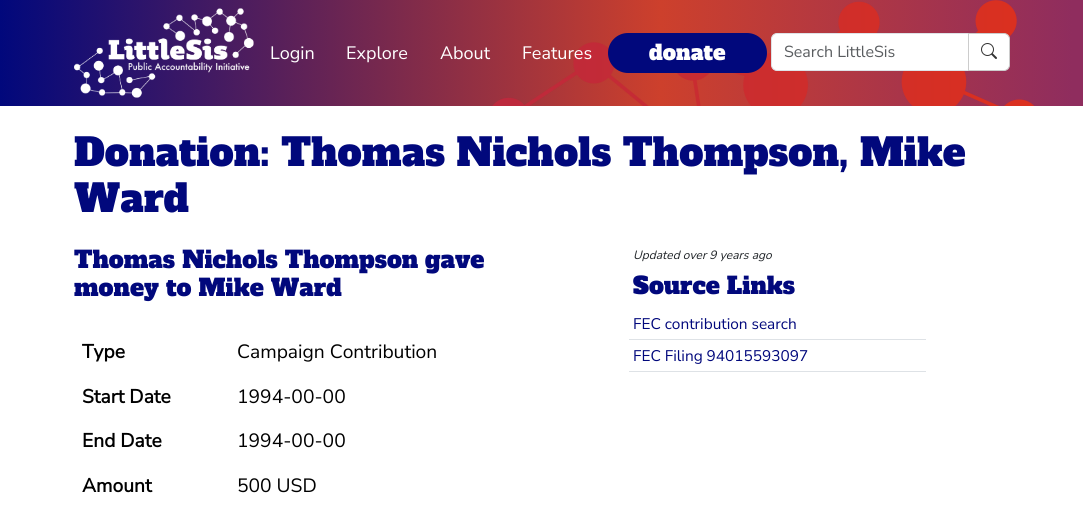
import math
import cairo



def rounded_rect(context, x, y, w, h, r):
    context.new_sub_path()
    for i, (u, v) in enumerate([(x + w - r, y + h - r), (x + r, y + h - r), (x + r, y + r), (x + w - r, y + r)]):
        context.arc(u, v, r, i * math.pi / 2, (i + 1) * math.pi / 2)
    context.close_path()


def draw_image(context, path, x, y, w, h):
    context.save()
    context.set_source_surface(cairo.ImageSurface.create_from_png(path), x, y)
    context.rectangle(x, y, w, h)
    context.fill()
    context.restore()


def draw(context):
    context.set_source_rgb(1, 1, 1)
    context.paint()
    draw_image(context, "images/1.png", 0, 0, 1083, 106)
    draw_image(context, "images/2.png", 74, 8, 180, 90)
    context.set_source_rgb(1 / 255, 8 / 255, 124 / 255)
    rounded_rect(context, 608, 33, 159, 40, 20)
    context.fill()
    context.set_source_rgb(1, 1, 1)
    context.new_path()
    context.move_to(777, 33.5)
    context.line_to(968.5, 33.5)
    context.line_to(968.5, 70.5)
    context.line_to(777, 70.5)
    context.curve_to(774, 70.5, 771.5, 68, 771.5, 65)
    context.line_to(771.5, 39)
    context.curve_to(771.5, 36, 774, 33.5, 777, 33.5)
    context.close_path()
    context.fill_preserve()
    context.set_source_rgb(222 / 255, 226 / 255, 230 / 255)
    context.set_line_width(1)
    context.stroke()
    context.set_source_rgb(1, 1, 1)
    context.new_path()
    context.move_to(968.5, 33.5)
    context.line_to(1004, 33.5)
    context.curve_to(1007, 33.5, 1009.5, 36, 1009.5, 39)
    context.line_to(1009.5, 65)
    context.curve_to(1009.5, 68, 1007, 70.5, 1004, 70.5)
    context.line_to(968.5, 70.5)
    context.close_path()
    context.fill_preserve()
    context.set_source_rgb(204 / 255, 204 / 255, 204 / 255)
    context.stroke()
    draw_image(context, "images/3.png", 981, 43, 16, 16)
    context.set_source_rgb(222 / 255, 226 / 255, 230 / 255)
    context.rectangle(629, 339, 297, 1)
    context.fill()
    context.rectangle(629, 371, 297, 1)
    context.fill()
    context.select_font_face("Nunito Sans")
    context.set_font_size(18)
    context.set_source_rgb(1, 1, 1)
    context.move_to(270, 59)
    context.show_text("Login")
    context.move_to(346, 59)
    context.show_text("Explore")
    context.move_to(440, 59)
    context.show_text("About")
    context.move_to(522, 59)
    context.show_text("Features")
    context.select_font_face("Alfa Slab One")
    context.set_font_size(21)
    context.move_to(649, 60)
    context.show_text("donate")
    context.select_font_face("Nunito Sans")
    context.set_font_size(16)
    context.set_source_rgb(89 / 255, 92 / 255, 95 / 255)
    context.move_to(784, 57)
    context.show_text("Search LittleSis")
    context.select_font_face("Alfa Slab One")
    context.set_font_size(38.25)
    context.set_source_rgb(1 / 255, 8 / 255, 124 / 255)
    context.move_to(74, 166)
    context.show_text("Donation: Thomas Nichols Thompson, Mike")
    context.move_to(74, 212)
    context.show_text("Ward")
    context.set_font_size(23.6)
    context.move_to(74, 268)
    context.show_text("Thomas Nichols Thompson")
    context.move_to(425, 268)
    context.show_text("gave")
    context.move_to(74, 296)
    context.show_text("money to Mike Ward")
    context.select_font_face("Nunito Sans", cairo.FontSlant.NORMAL, cairo.FontWeight.BOLD)
    context.set_font_size(19.25)
    context.set_source_rgb(0, 0, 0)
    context.move_to(82, 358)
    context.show_text("Type")
    context.select_font_face("Nunito Sans")
    context.move_to(237, 358)
    context.show_text("Campaign Contribution")
    context.select_font_face("Nunito Sans", cairo.FontSlant.NORMAL, cairo.FontWeight.BOLD)
    context.move_to(82, 403)
    context.show_text("Start Date")
    context.select_font_face("Nunito Sans")
    context.move_to(237, 403)
    context.show_text("1994-00-00")
    context.select_font_face("Nunito Sans", cairo.FontSlant.NORMAL, cairo.FontWeight.BOLD)
    context.move_to(82, 447)
    context.show_text("End Date")
    context.select_font_face("Nunito Sans")
    context.move_to(237, 447)
    context.show_text("1994-00-00")
    context.select_font_face("Nunito Sans", cairo.FontSlant.NORMAL, cairo.FontWeight.BOLD)
    context.move_to(82, 492)
    context.show_text("Amount")
    context.select_font_face("Nunito Sans")
    context.move_to(237, 492)
    context.show_text("500 USD")
    context.select_font_face("Nunito Sans", cairo.FontSlant.ITALIC)
    context.set_font_size(12)
    context.set_source_rgb(33 / 255, 37 / 255, 41 / 255)
    context.move_to(633, 259)
    context.show_text("Updated over 9 years ago")
    context.select_font_face("Alfa Slab One")
    context.set_font_size(23.6)
    context.set_source_rgb(1 / 255, 8 / 255, 124 / 255)
    context.move_to(633, 294)
    context.show_text("Source Links")
    context.select_font_face("Nunito Sans")
    context.set_font_size(15.4)
    context.move_to(633, 329)
    context.show_text("FEC contribution search")
    context.move_to(633, 361)
    context.show_text("FEC Filing 94015593097")


surface = cairo.ImageSurface(cairo.Format.RGB24, 1083, 507)
context = cairo.Context(surface)
options = cairo.FontOptions()
options.set_hint_metrics(cairo.HintMetrics.OFF)
options.set_hint_style(cairo.HintStyle.NONE)
context.set_font_options(options)
context.set_miter_limit(4)
draw(context)
surface.write_to_png("out.png")
